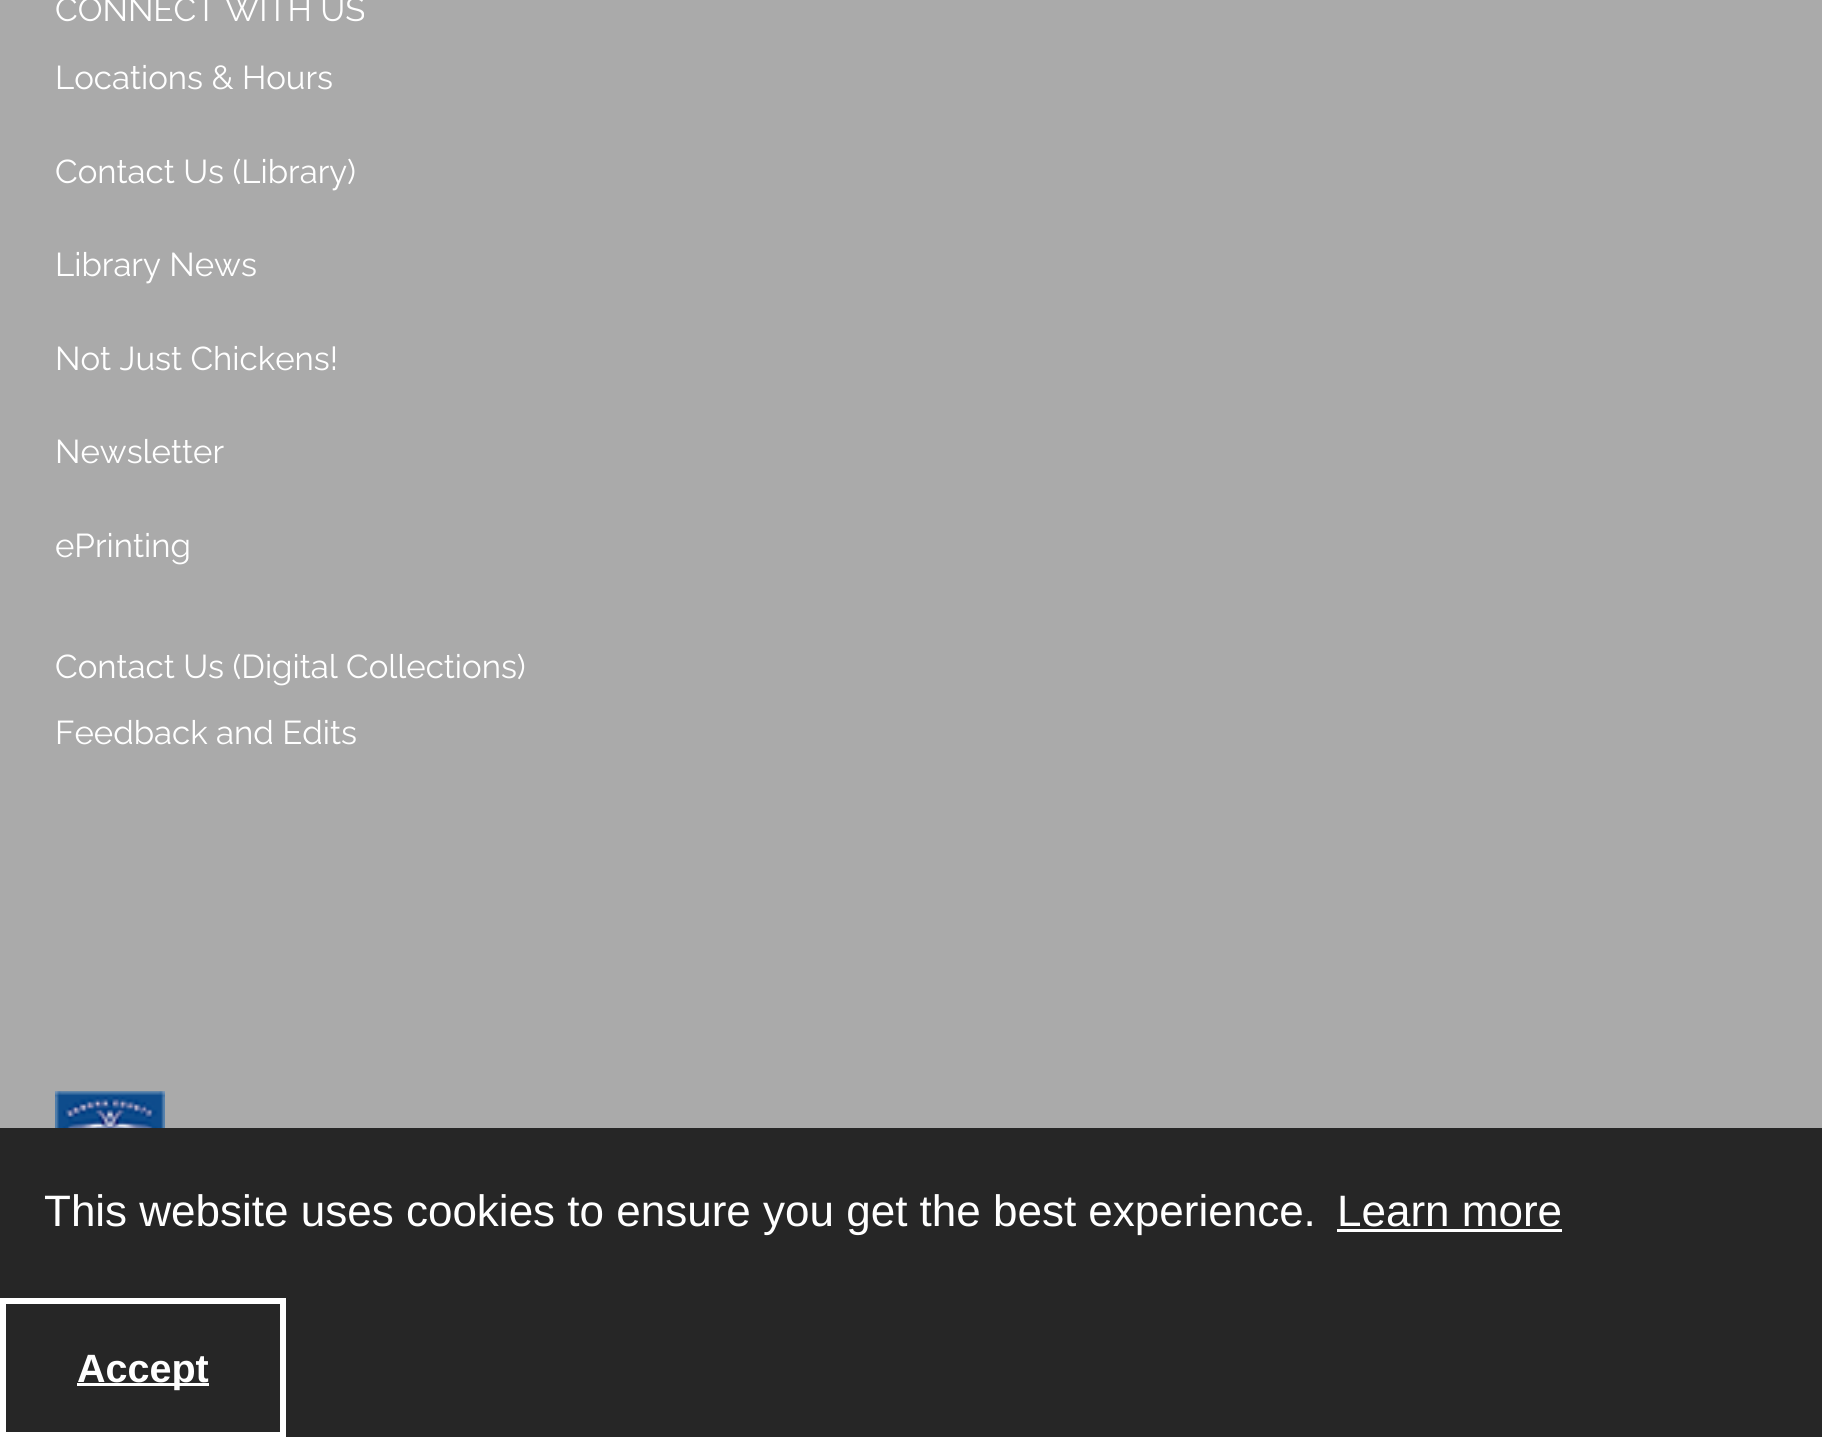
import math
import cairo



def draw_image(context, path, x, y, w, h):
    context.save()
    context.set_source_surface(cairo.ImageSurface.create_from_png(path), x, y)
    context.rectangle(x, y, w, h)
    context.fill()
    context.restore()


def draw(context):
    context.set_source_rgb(170 / 255, 170 / 255, 170 / 255)
    context.paint()
    draw_image(context, "images/1.png", 55, 1091, 110, 37)
    context.set_source_rgb(38 / 255, 38 / 255, 38 / 255)
    context.rectangle(0, 1128, 1822, 309)
    context.fill()
    context.set_source_rgb(1, 1, 1)
    context.rectangle(1337, 1229, 225, 3)
    context.fill()
    context.rectangle(3, 1301, 280, 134)
    context.set_line_width(6)
    context.stroke()
    context.rectangle(77, 1383, 132, 3)
    context.fill()
    context.select_font_face("Raleway")
    context.set_font_size(33)
    context.move_to(55, 21)
    context.show_text("CONNECT WITH US")
    context.move_to(55, 89)
    context.show_text("Locations & Hours")
    context.move_to(55, 183)
    context.show_text("Contact Us (Library)")
    context.move_to(55, 276)
    context.show_text("Library News")
    context.move_to(55, 370)
    context.show_text("Not Just Chickens!")
    context.move_to(55, 463)
    context.show_text("Newsletter")
    context.move_to(55, 557)
    context.show_text("ePrinting")
    context.move_to(55, 678)
    context.show_text("Contact Us (Digital Collections)")
    context.move_to(55, 744)
    context.show_text("Feedback and Edits")
    context.select_font_face("Liberation Sans")
    context.set_font_size(44)
    context.move_to(44, 1226)
    context.show_text("This website uses cookies to ensure you get the best experience.")
    context.move_to(1337, 1226)
    context.show_text("Learn more")
    context.select_font_face("Liberation Sans", cairo.FontSlant.NORMAL, cairo.FontWeight.BOLD)
    context.set_font_size(39.5)
    context.move_to(77, 1382)
    context.show_text("Accept")


surface = cairo.ImageSurface(cairo.Format.RGB24, 1822, 1437)
context = cairo.Context(surface)
options = cairo.FontOptions()
options.set_hint_metrics(cairo.HintMetrics.OFF)
options.set_hint_style(cairo.HintStyle.NONE)
context.set_font_options(options)
context.set_miter_limit(4)
draw(context)
surface.write_to_png("out.png")
